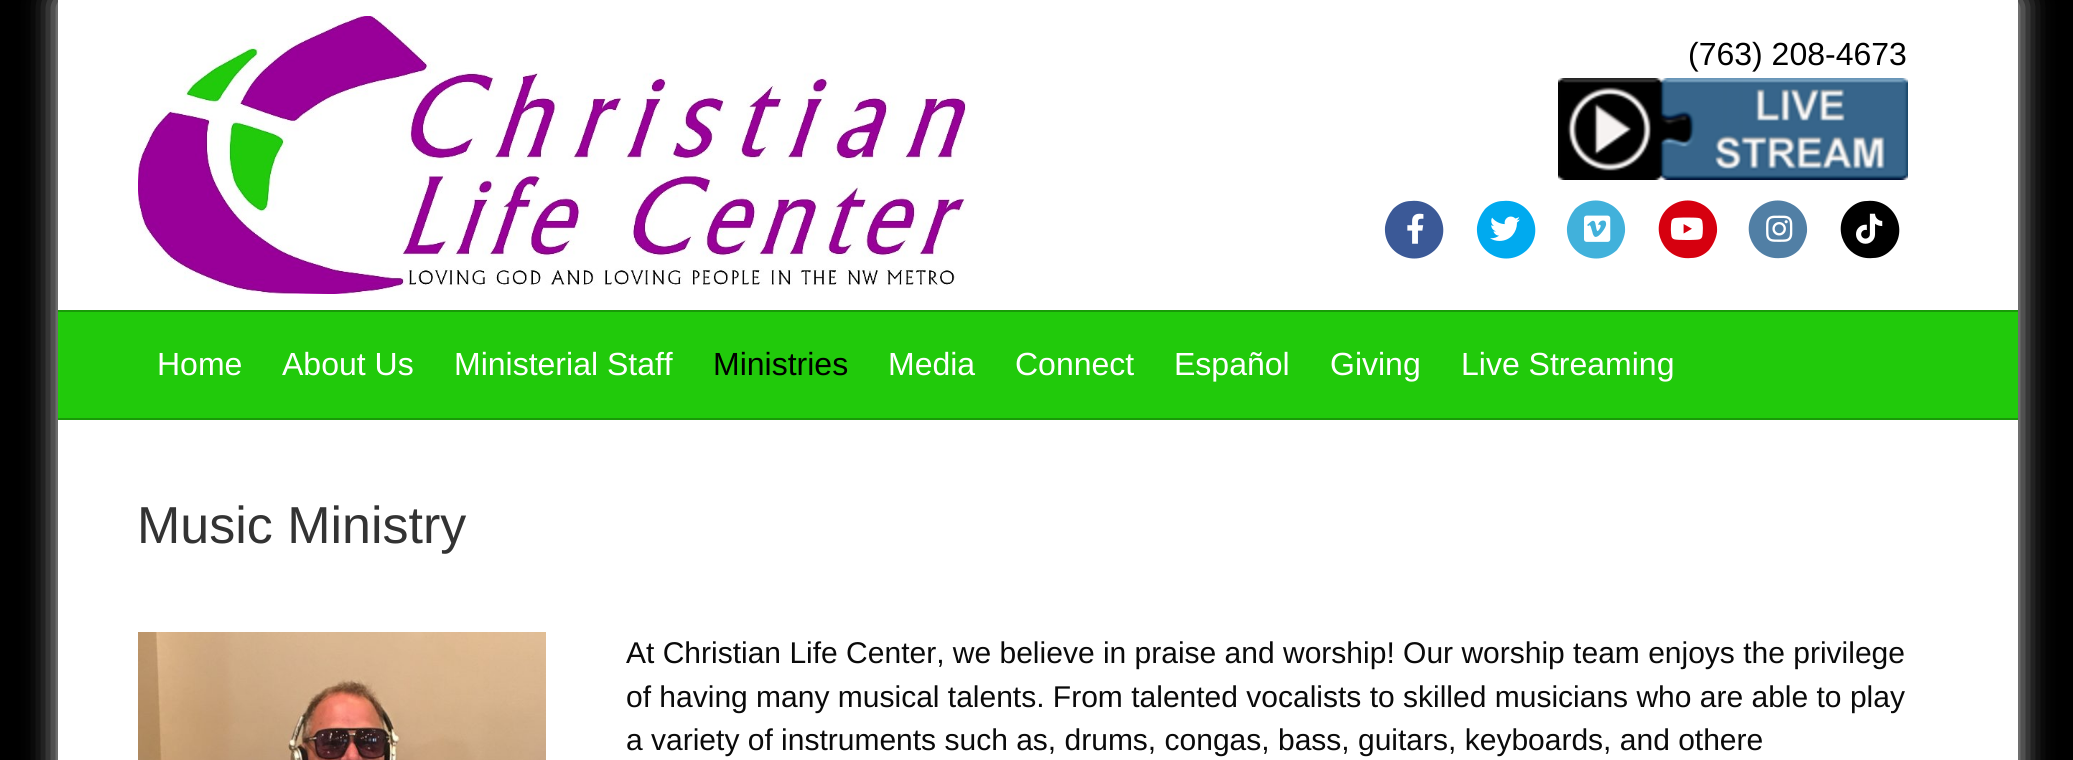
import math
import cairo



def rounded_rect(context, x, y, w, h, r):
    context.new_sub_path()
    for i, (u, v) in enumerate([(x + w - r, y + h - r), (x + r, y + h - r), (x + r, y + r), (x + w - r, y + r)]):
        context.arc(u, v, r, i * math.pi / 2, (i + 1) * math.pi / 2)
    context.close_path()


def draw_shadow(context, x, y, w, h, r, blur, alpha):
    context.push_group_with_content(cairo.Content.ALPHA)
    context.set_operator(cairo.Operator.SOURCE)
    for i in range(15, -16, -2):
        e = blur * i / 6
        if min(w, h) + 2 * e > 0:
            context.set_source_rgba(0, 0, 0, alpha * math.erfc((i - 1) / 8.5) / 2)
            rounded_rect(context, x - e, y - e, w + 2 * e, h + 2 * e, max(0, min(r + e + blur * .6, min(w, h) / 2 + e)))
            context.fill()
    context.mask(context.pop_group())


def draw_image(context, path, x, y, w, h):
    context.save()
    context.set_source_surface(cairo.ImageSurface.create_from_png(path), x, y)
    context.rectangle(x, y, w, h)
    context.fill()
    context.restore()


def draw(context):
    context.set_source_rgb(0, 0, 0)
    context.paint()
    context.set_source_rgb(217 / 255, 217 / 255, 217 / 255)
    draw_shadow(context, 58, 0, 1960, 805, 0, 15, 1)
    context.set_source_rgb(1, 1, 1)
    context.rectangle(58, 0, 1960, 310)
    context.fill()
    draw_image(context, "images/1.png", 138, 16, 828, 278)
    draw_image(context, "images/2.png", 1558, 78, 350, 102)
    context.set_source_rgb(59 / 255, 89 / 255, 151 / 255)
    context.new_path()
    context.move_to(1393, 209)
    context.curve_to(1398, 204, 1404, 201, 1411, 201)
    context.curve_to(1438, 198, 1454, 231, 1435, 250)
    context.curve_to(1415, 269, 1383, 254, 1385, 227)
    context.curve_to(1386, 220, 1389, 214, 1393, 209)
    context.close_path()
    context.fill()
    draw_image(context, "images/3.png", 1407, 213, 17, 31)
    context.set_source_rgb(0, 170 / 255, 239 / 255)
    context.new_path()
    context.move_to(1485, 209)
    context.curve_to(1490, 204, 1496, 201, 1503, 201)
    context.curve_to(1530, 198, 1546, 231, 1527, 250)
    context.curve_to(1507, 269, 1475, 254, 1477, 227)
    context.curve_to(1478, 220, 1481, 214, 1485, 209)
    context.close_path()
    context.fill()
    draw_image(context, "images/4.png", 1490, 216, 30, 25)
    context.set_source_rgb(65 / 255, 177 / 255, 219 / 255)
    context.new_path()
    context.move_to(1575, 209)
    context.curve_to(1595, 190, 1627, 205, 1625, 232)
    context.curve_to(1624, 239, 1621, 245, 1617, 250)
    context.curve_to(1597, 269, 1565, 254, 1567, 227)
    context.curve_to(1568, 220, 1571, 214, 1575, 209)
    context.close_path()
    context.fill()
    draw_image(context, "images/5.png", 1584, 215, 27, 27)
    context.set_source_rgb(214 / 255, 0, 15 / 255)
    context.new_path()
    context.move_to(1667, 209)
    context.curve_to(1687, 190, 1719, 205, 1717, 232)
    context.curve_to(1716, 239, 1713, 245, 1709, 250)
    context.curve_to(1704, 255, 1698, 258, 1691, 258)
    context.curve_to(1664, 261, 1648, 228, 1667, 209)
    context.close_path()
    context.fill()
    draw_image(context, "images/6.png", 1670, 217, 33, 23)
    context.set_source_rgb(81 / 255, 127 / 255, 165 / 255)
    context.new_path()
    context.move_to(1757, 209)
    context.curve_to(1777, 190, 1809, 205, 1807, 232)
    context.curve_to(1806, 239, 1803, 245, 1799, 250)
    context.curve_to(1794, 255, 1788, 258, 1781, 258)
    context.curve_to(1754, 261, 1738, 228, 1757, 209)
    context.close_path()
    context.fill()
    draw_image(context, "images/7.png", 1766, 215, 27, 27)
    context.set_source_rgb(0, 0, 0)
    context.new_path()
    context.move_to(1849, 209)
    context.curve_to(1854, 204, 1860, 201, 1867, 201)
    context.curve_to(1894, 198, 1910, 231, 1891, 250)
    context.curve_to(1886, 255, 1880, 258, 1873, 258)
    context.curve_to(1846, 261, 1830, 228, 1849, 209)
    context.close_path()
    context.fill()
    draw_image(context, "images/8.png", 1856, 213, 27, 31)
    context.set_source_rgb(33 / 255, 202 / 255, 11 / 255)
    context.rectangle(58, 312, 1960, 106)
    context.fill()
    context.set_source_rgb(25 / 255, 154 / 255, 8 / 255)
    context.rectangle(58, 310, 1960, 2)
    context.fill()
    context.rectangle(58, 418, 1960, 2)
    context.fill()
    context.set_source_rgb(1, 1, 1)
    context.rectangle(58, 420, 1960, 340)
    context.fill()
    draw_image(context, "images/9.png", 138, 632, 408, 128)
    context.select_font_face("Liberation Sans")
    context.set_font_size(32)
    context.set_source_rgb(0, 0, 0)
    context.move_to(1688, 65)
    context.show_text("(763) 208-4673")
    context.set_source_rgb(1, 1, 1)
    context.move_to(157, 375)
    context.show_text("Home")
    context.move_to(282, 375)
    context.show_text("About Us")
    context.move_to(454, 375)
    context.show_text("Ministerial Staff")
    context.set_source_rgb(0, 0, 0)
    context.move_to(713, 375)
    context.show_text("Ministries")
    context.set_source_rgb(1, 1, 1)
    context.move_to(888, 375)
    context.show_text("Media")
    context.move_to(1015, 375)
    context.show_text("Connect")
    context.move_to(1174, 375)
    context.show_text("Español")
    context.move_to(1330, 375)
    context.show_text("Giving")
    context.move_to(1461, 375)
    context.show_text("Live Streaming")
    context.set_font_size(52)
    context.set_source_rgb(51 / 255, 51 / 255, 51 / 255)
    context.move_to(137, 543)
    context.show_text("Music Ministry")
    context.set_font_size(30)
    context.set_source_rgb(10 / 255, 10 / 255, 10 / 255)
    context.move_to(626, 663)
    context.show_text("At Christian Life Center, we believe in praise and worship! Our worship team enjoys the privilege")
    context.move_to(626, 707)
    context.show_text("of having many musical talents. From talented vocalists to skilled musicians who are able to play")
    context.move_to(626, 750)
    context.show_text("a variety of instruments such as, drums, congas, bass, guitars, keyboards, and othere")


surface = cairo.ImageSurface(cairo.Format.RGB24, 2073, 760)
context = cairo.Context(surface)
options = cairo.FontOptions()
options.set_hint_metrics(cairo.HintMetrics.OFF)
options.set_hint_style(cairo.HintStyle.NONE)
context.set_font_options(options)
context.set_miter_limit(4)
draw(context)
surface.write_to_png("out.png")
